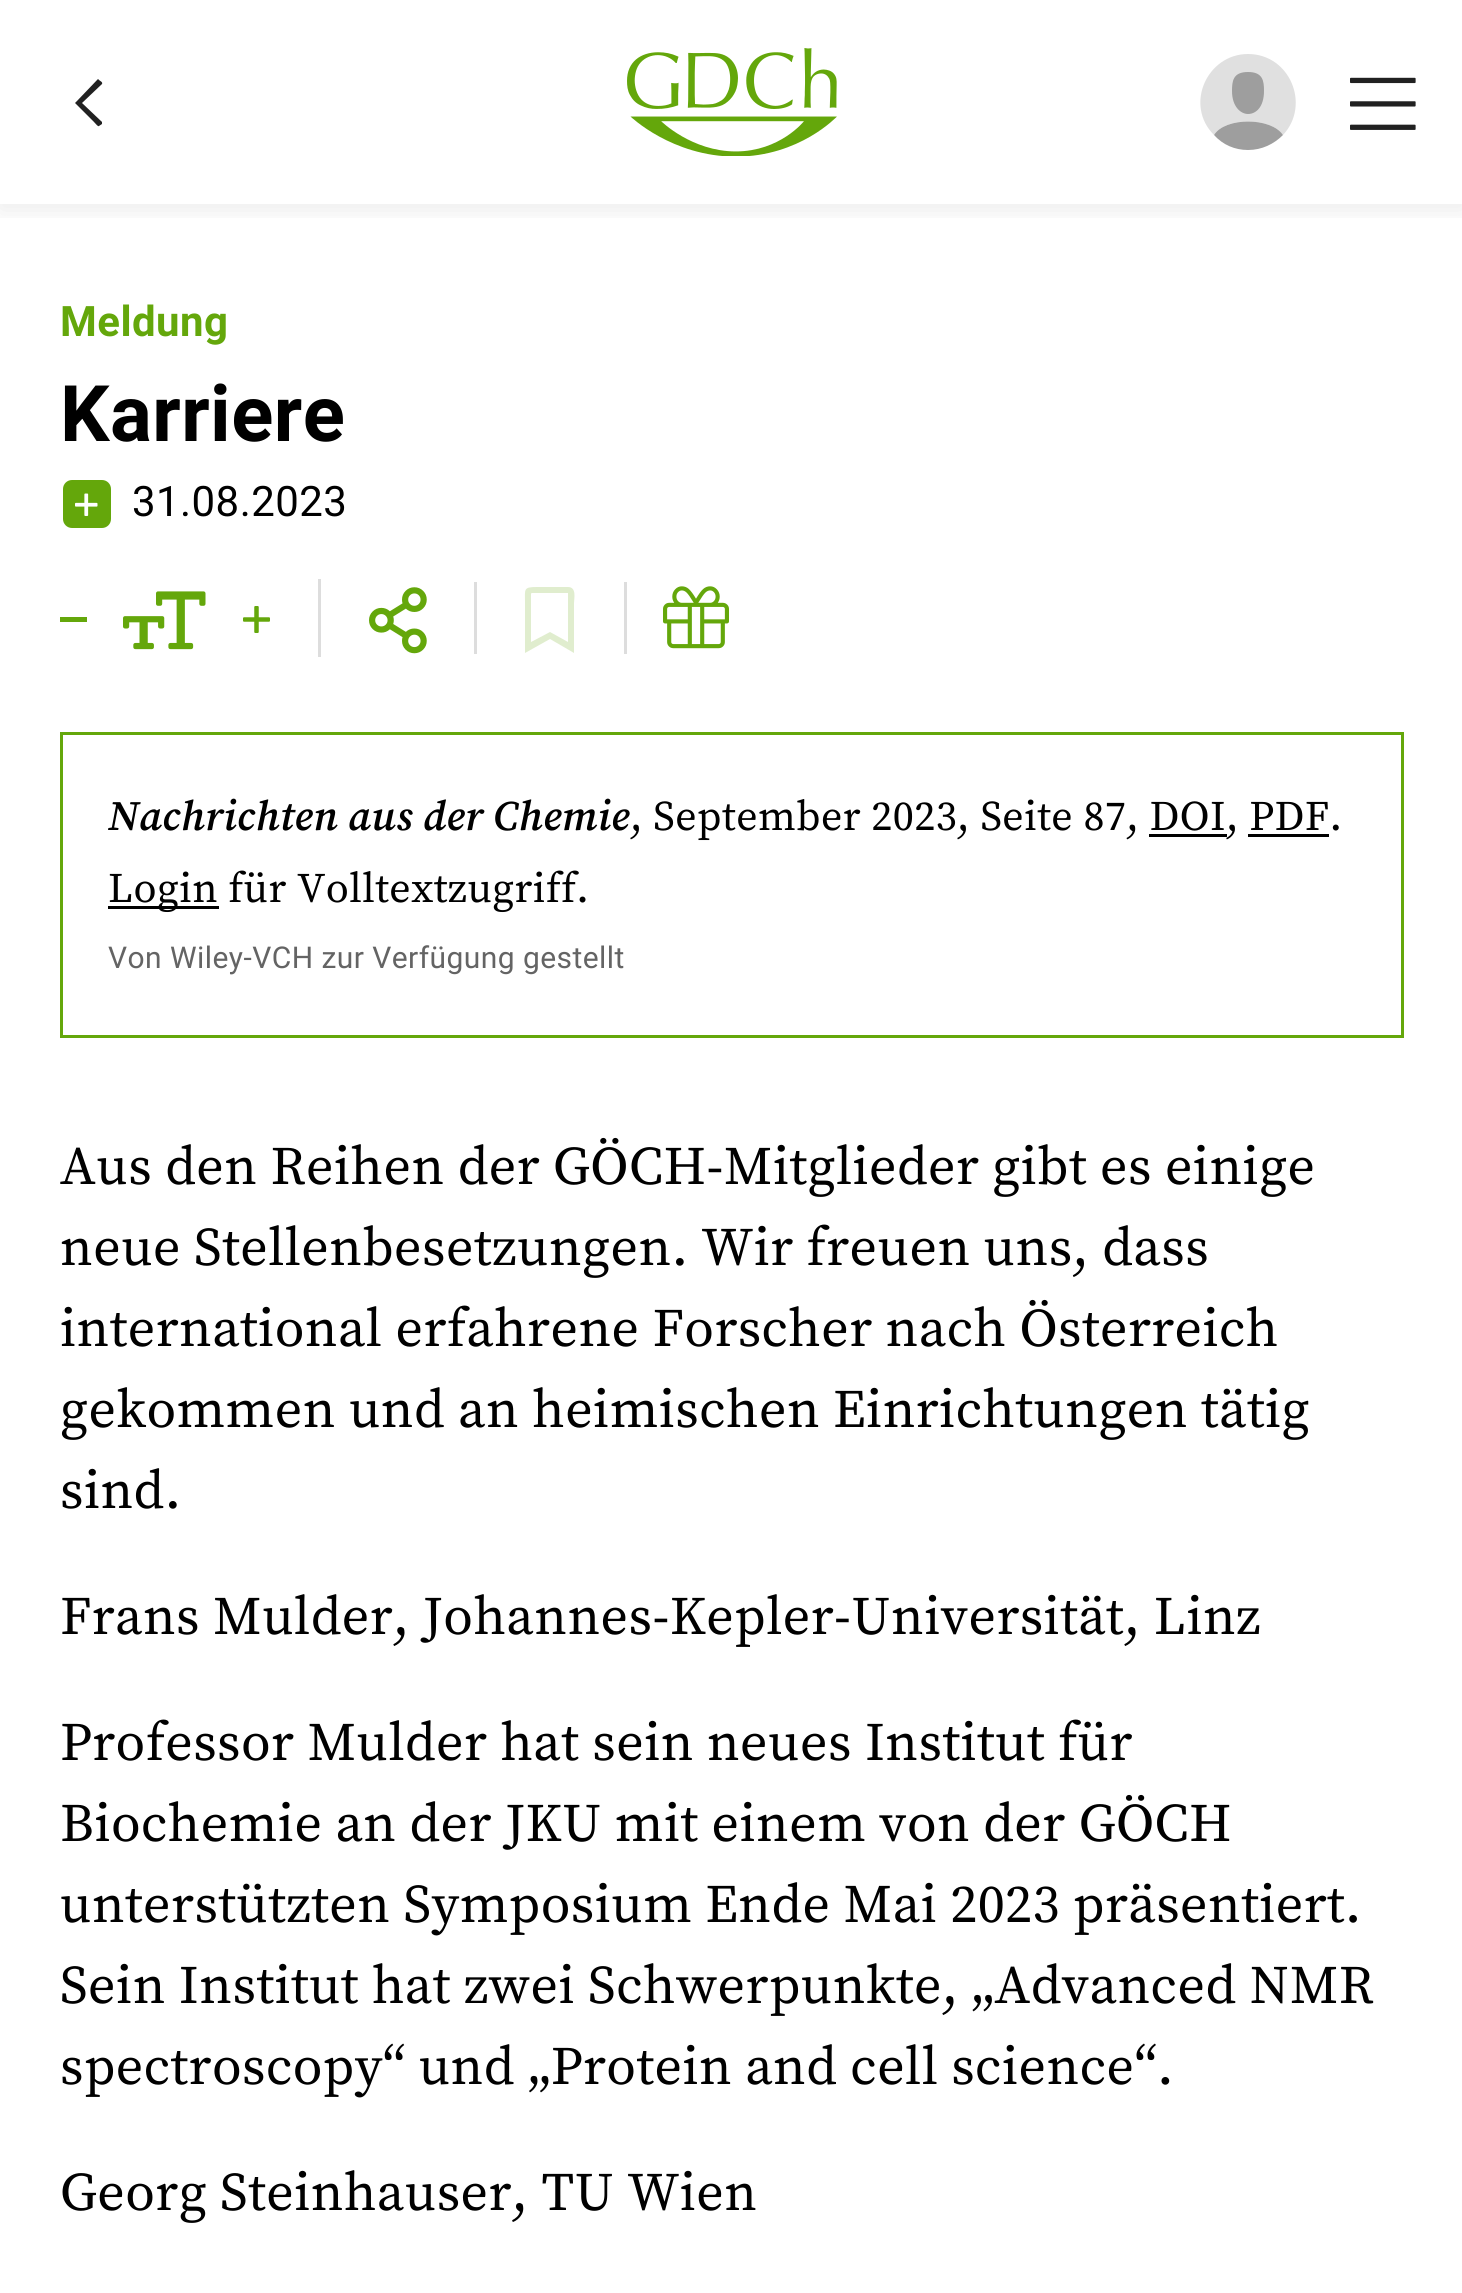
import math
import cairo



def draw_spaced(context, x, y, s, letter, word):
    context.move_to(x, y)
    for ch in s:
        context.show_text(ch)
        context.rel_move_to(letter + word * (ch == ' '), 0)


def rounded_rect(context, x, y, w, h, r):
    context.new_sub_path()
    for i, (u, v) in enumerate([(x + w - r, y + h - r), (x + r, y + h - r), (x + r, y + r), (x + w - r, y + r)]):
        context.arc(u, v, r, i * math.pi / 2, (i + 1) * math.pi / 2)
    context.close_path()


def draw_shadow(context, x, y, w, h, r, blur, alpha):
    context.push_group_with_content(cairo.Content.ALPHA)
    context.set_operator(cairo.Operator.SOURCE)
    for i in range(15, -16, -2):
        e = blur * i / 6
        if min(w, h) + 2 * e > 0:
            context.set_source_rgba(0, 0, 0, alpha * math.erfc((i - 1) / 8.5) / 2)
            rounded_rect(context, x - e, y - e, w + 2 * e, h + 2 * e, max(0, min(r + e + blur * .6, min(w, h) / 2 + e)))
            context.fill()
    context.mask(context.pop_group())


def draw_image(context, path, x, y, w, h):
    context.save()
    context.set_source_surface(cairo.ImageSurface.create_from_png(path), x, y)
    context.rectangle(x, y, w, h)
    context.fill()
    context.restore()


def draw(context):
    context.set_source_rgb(1, 1, 1)
    context.paint()
    context.save()
    context.rectangle(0, 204, 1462, 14)
    context.clip()
    context.set_source_rgb(0, 0, 0)
    draw_shadow(context, 0, 6, 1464, 204, 0, 12, 0.08)
    context.restore()
    context.set_source_rgb(33 / 255, 33 / 255, 33 / 255)
    context.new_path()
    context.move_to(99, 126)
    context.curve_to(98, 127, 96, 124, 94, 122)
    context.line_to(75, 103)
    context.line_to(76, 102)
    context.line_to(98, 79)
    context.line_to(99, 80)
    context.curve_to(100, 81, 103, 82, 102, 84)
    context.line_to(82, 103)
    context.line_to(102, 122)
    context.curve_to(102, 122, 102, 123, 102, 124)
    context.close_path()
    context.fill()
    draw_image(context, "images/1.png", 627, 48, 210, 108)
    context.set_source_rgb(224 / 255, 224 / 255, 224 / 255)
    context.new_path()
    context.move_to(1248, 54)
    context.curve_to(1207, 54, 1184, 105, 1214, 135)
    context.curve_to(1225, 117, 1271, 117, 1283, 135)
    context.curve_to(1311, 105, 1290, 54, 1248, 54)
    context.close_path()
    context.fill()
    context.set_source_rgb(158 / 255, 158 / 255, 158 / 255)
    context.new_path()
    context.move_to(1248, 150)
    context.curve_to(1262, 150, 1274, 144, 1283, 135)
    context.curve_to(1271, 117, 1225, 117, 1214, 135)
    context.curve_to(1223, 145, 1235, 150, 1248, 150)
    context.close_path()
    context.fill()
    context.new_path()
    context.move_to(1248, 72)
    context.curve_to(1263, 72, 1264, 81, 1264, 91)
    context.curve_to(1264, 107, 1256, 114, 1248, 114)
    context.curve_to(1241, 114, 1232, 107, 1232, 91)
    context.curve_to(1232, 81, 1233, 72, 1248, 72)
    context.close_path()
    context.fill()
    draw_image(context, "images/2.png", 1350, 77, 66, 53)
    context.set_source_rgb(100 / 255, 167 / 255, 11 / 255)
    rounded_rect(context, 63, 480, 48, 48, 9)
    context.fill()
    draw_image(context, "images/3.png", 75, 493, 23, 23)
    context.set_source_rgb(221 / 255, 221 / 255, 221 / 255)
    context.rectangle(318, 579, 3, 78)
    context.fill()
    context.set_source_rgb(100 / 255, 167 / 255, 11 / 255)
    context.rectangle(60, 617, 27, 5)
    context.fill()
    draw_image(context, "images/4.png", 123, 591, 83, 59)
    draw_image(context, "images/5.png", 243, 606, 27, 27)
    context.set_source_rgb(221 / 255, 221 / 255, 221 / 255)
    context.rectangle(474, 582, 3, 72)
    context.fill()
    draw_image(context, "images/6.png", 369, 587, 58, 67)
    context.rectangle(624, 582, 3, 72)
    context.fill()
    context.set_source_rgb(224 / 255, 237 / 255, 206 / 255)
    context.new_path()
    context.move_to(568, 587)
    context.curve_to(577, 587, 574, 599, 574, 603)
    context.line_to(574, 653)
    context.line_to(550, 639)
    context.line_to(525, 653)
    context.line_to(525, 603)
    context.curve_to(525, 589, 523, 587, 537, 587)
    context.close_path()
    context.move_to(568, 642)
    context.line_to(568, 594)
    context.curve_to(568, 594, 568, 593, 568, 593)
    context.line_to(532, 593)
    context.curve_to(531, 593, 531, 594, 531, 594)
    context.line_to(531, 642)
    context.line_to(550, 632)
    context.close_path()
    context.fill()
    draw_image(context, "images/7.png", 663, 586, 66, 63)
    context.rectangle(61.5, 733.5, 1341, 303)
    context.set_source_rgb(100 / 255, 167 / 255, 11 / 255)
    context.set_line_width(3)
    context.stroke()
    context.set_source_rgb(0, 0, 0)
    context.rectangle(1149, 834, 78, 3)
    context.fill()
    context.rectangle(1248, 834, 81, 3)
    context.fill()
    context.rectangle(108, 906, 111, 3)
    context.fill()
    context.select_font_face("Roboto", cairo.FontSlant.NORMAL, cairo.FontWeight.BOLD)
    context.set_font_size(42)
    context.set_source_rgb(100 / 255, 167 / 255, 11 / 255)
    draw_spaced(context, 60, 336, "Meldung", 0.45, 0)
    context.set_font_size(78)
    context.set_source_rgb(0, 0, 0)
    draw_spaced(context, 60, 441, "Karriere", 0.45, 0)
    context.select_font_face("Roboto")
    context.set_font_size(42)
    draw_spaced(context, 132, 516, "31.08.2023", 0.45, 0)
    context.select_font_face("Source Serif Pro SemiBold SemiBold", cairo.FontSlant.ITALIC)
    draw_spaced(context, 108, 830, "Nachrichten aus der Chemie", 0.45, 0)
    context.select_font_face("Source Serif Pro")
    draw_spaced(context, 630, 830, ", September 2023, Seite 87, DOI", 0.45, 0)
    draw_spaced(context, 1226, 830, ", PDF.", 0.45, 0)
    draw_spaced(context, 108, 902, "Login für Volltextzugriff.", 0.45, 0)
    context.select_font_face("Roboto")
    context.set_font_size(30)
    context.set_source_rgb(100 / 255, 100 / 255, 100 / 255)
    draw_spaced(context, 108, 968, "Von Wiley-VCH zur Verfügung gestellt", 0.45, 0)
    context.select_font_face("Source Serif Pro")
    context.set_font_size(54)
    context.set_source_rgb(0, 0, 0)
    draw_spaced(context, 60, 1184, "Aus den Reihen der GÖCH-Mitglieder gibt es einige", 0.45, 0)
    draw_spaced(context, 60, 1265, "neue Stellenbesetzungen. Wir freuen uns, dass", 0.45, 0)
    draw_spaced(context, 60, 1346, "international erfahrene Forscher nach Österreich", 0.45, 0)
    draw_spaced(context, 60, 1427, "gekommen und an heimischen Einrichtungen tätig", 0.45, 0)
    draw_spaced(context, 60, 1508, "sind.", 0.45, 0)
    draw_spaced(context, 60, 1634, "Frans Mulder, Johannes-Kepler-Universität, Linz", 0.45, 0)
    draw_spaced(context, 60, 1760, "Professor Mulder hat sein neues Institut für", 0.45, 0)
    draw_spaced(context, 60, 1841, "Biochemie an der JKU mit einem von der GÖCH", 0.45, 0)
    draw_spaced(context, 60, 1922, "unterstützten Symposium Ende Mai 2023 präsentiert.", 0.45, 0)
    draw_spaced(context, 60, 2003, "Sein Institut hat zwei Schwerpunkte, „Advanced NMR", 0.45, 0)
    draw_spaced(context, 60, 2084, "spectroscopy“ und „Protein and cell science“.", 0.45, 0)
    draw_spaced(context, 60, 2210, "Georg Steinhauser, TU Wien", 0.45, 0)


surface = cairo.ImageSurface(cairo.Format.RGB24, 1462, 2293)
context = cairo.Context(surface)
options = cairo.FontOptions()
options.set_hint_metrics(cairo.HintMetrics.OFF)
options.set_hint_style(cairo.HintStyle.NONE)
context.set_font_options(options)
context.set_miter_limit(4)
draw(context)
surface.write_to_png("out.png")
